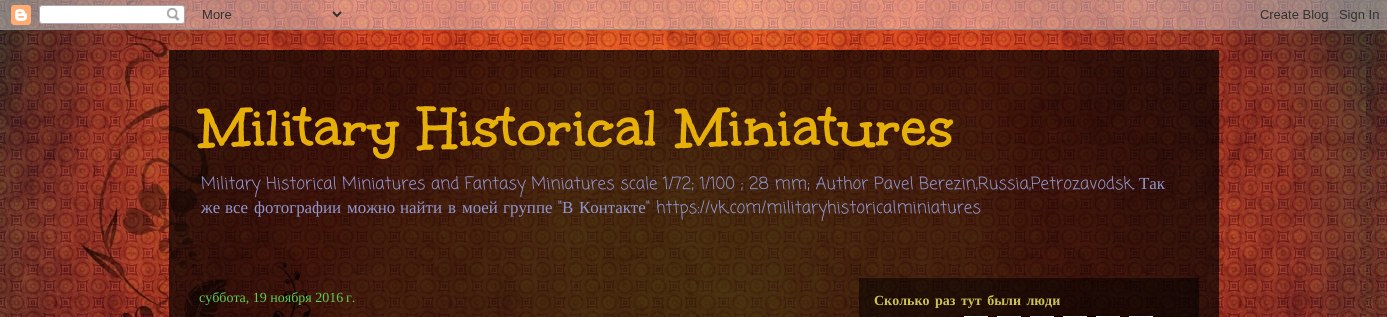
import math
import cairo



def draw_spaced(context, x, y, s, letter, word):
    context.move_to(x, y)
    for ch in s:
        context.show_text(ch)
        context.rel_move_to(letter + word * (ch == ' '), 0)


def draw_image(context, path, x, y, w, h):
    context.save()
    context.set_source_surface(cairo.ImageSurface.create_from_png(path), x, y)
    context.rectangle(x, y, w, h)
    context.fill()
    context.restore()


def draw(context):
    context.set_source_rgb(1, 1, 1)
    context.paint()
    draw_image(context, "images/1.png", 0, 0, 1387, 317)
    draw_image(context, "images/2.png", 0, 0, 1387, 30)
    context.set_source_rgba(0, 0, 0, 0.7)
    context.rectangle(169, 50, 1050, 267)
    context.fill()
    context.set_source_rgba(0, 0, 0, 0.5)
    context.rectangle(859, 278, 340, 39)
    context.fill()
    draw_image(context, "images/3.png", 874, 316, 2, 1)
    context.rectangle(964.5, 316.5, 23, 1)
    context.set_source_rgb(1, 1, 1)
    context.set_line_width(1)
    context.stroke()
    context.rectangle(997.5, 316.5, 23, 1)
    context.stroke()
    context.rectangle(1030.5, 316.5, 23, 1)
    context.stroke()
    context.rectangle(1063.5, 316.5, 23, 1)
    context.stroke()
    context.rectangle(1096.5, 316.5, 23, 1)
    context.stroke()
    context.rectangle(1129.5, 316.5, 23, 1)
    context.stroke()
    context.select_font_face("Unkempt", cairo.FontSlant.NORMAL, cairo.FontWeight.BOLD)
    context.set_font_size(60)
    context.set_source_rgb(231 / 255, 176 / 255, 9 / 255)
    context.move_to(199, 149)
    context.show_text("Military Historical Miniatures")
    context.select_font_face("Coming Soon")
    context.set_font_size(16.9)
    context.set_source_rgb(144 / 255, 149 / 255, 205 / 255)
    context.move_to(201, 189)
    context.show_text("Military Historical Miniatures and Fantasy Miniatures scale 1/72; 1/100 ; 28 mm; Author Pavel Berezin,Russia,Petrozavodsk.")
    context.select_font_face("Liberation Serif")
    context.move_to(1139, 189)
    context.show_text("Так")
    context.move_to(201, 213)
    context.show_text("же")
    context.move_to(225, 213)
    context.show_text("все")
    context.move_to(254, 213)
    context.show_text("фотографии")
    context.move_to(347, 213)
    context.show_text("можно")
    context.move_to(400, 213)
    context.show_text("найти")
    context.move_to(448, 213)
    context.show_text("в")
    context.move_to(462, 213)
    context.show_text("моей")
    context.move_to(503, 213)
    context.show_text("группе")
    context.select_font_face("Coming Soon")
    context.move_to(558, 213)
    context.show_text("\"")
    context.select_font_face("Liberation Serif")
    context.move_to(562, 213)
    context.show_text("В")
    context.move_to(579, 213)
    context.show_text("Контакте")
    context.select_font_face("Coming Soon")
    context.move_to(646, 213)
    context.show_text("\" https://vk.com/militaryhistoricalminiatures")
    context.select_font_face("Liberation Serif")
    context.set_font_size(14)
    context.set_source_rgb(93 / 255, 205 / 255, 83 / 255)
    context.move_to(199, 302)
    context.show_text("суббота, 19 ноября 2016 г.")
    context.select_font_face("Liberation Serif", cairo.FontSlant.NORMAL, cairo.FontWeight.BOLD)
    context.set_source_rgb(205 / 255, 195 / 255, 83 / 255)
    draw_spaced(context, 874, 305, "Сколько раз тут были люди", 0, 2)


surface = cairo.ImageSurface(cairo.Format.RGB24, 1387, 317)
context = cairo.Context(surface)
options = cairo.FontOptions()
options.set_hint_metrics(cairo.HintMetrics.OFF)
options.set_hint_style(cairo.HintStyle.NONE)
context.set_font_options(options)
context.set_miter_limit(4)
draw(context)
surface.write_to_png("out.png")
